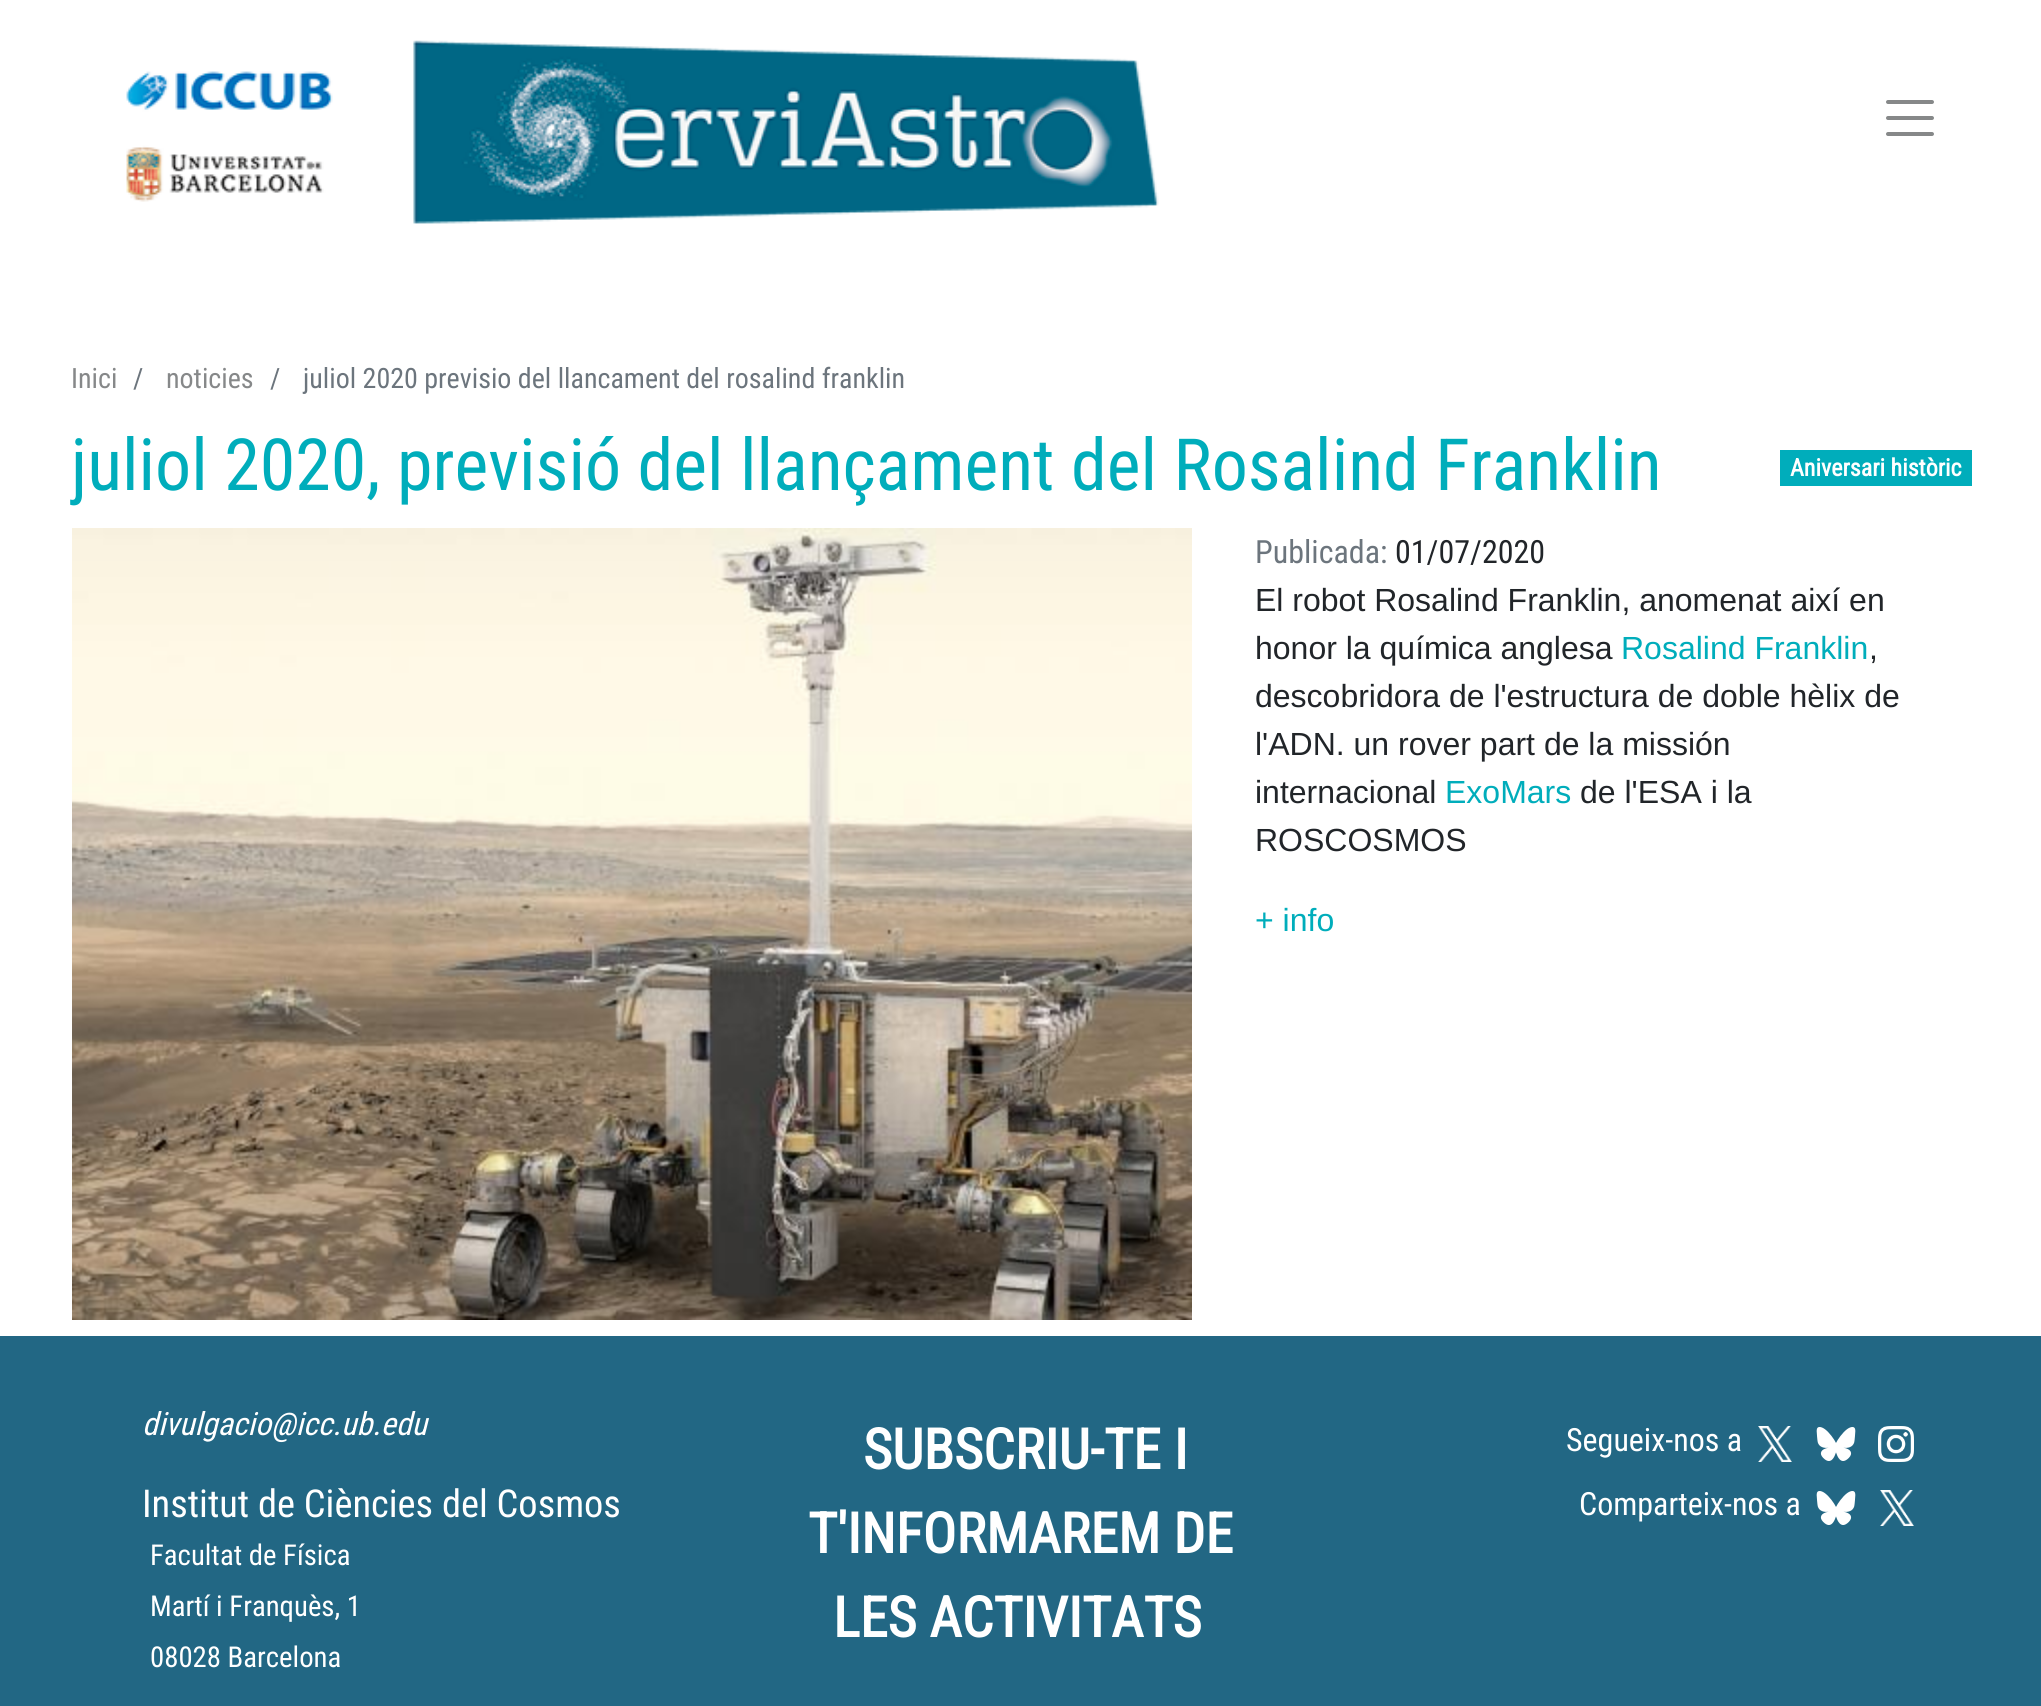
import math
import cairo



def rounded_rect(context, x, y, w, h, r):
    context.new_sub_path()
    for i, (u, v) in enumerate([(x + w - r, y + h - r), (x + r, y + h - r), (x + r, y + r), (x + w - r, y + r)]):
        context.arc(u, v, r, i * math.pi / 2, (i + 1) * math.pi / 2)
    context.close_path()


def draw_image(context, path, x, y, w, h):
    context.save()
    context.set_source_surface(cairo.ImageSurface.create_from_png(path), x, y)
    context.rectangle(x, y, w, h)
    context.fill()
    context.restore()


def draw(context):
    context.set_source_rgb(1, 1, 1)
    context.paint()
    draw_image(context, "images/1.png", 126, 40, 1033, 184)
    context.set_source_rgb(134 / 255, 136 / 255, 137 / 255)
    rounded_rect(context, 1886, 116, 48, 4, 2)
    context.fill()
    rounded_rect(context, 1886, 100, 48, 4, 2)
    context.fill()
    rounded_rect(context, 1886, 132, 48, 4, 2)
    context.fill()
    context.set_source_rgb(0, 173 / 255, 187 / 255)
    context.rectangle(1780, 450, 192, 36)
    context.fill()
    draw_image(context, "images/2.png", 72, 528, 1120, 792)
    context.set_source_rgb(34 / 255, 103 / 255, 132 / 255)
    context.rectangle(0, 1336, 2041, 370)
    context.fill()
    draw_image(context, "images/3.png", 1758, 1426, 34, 36)
    draw_image(context, "images/4.png", 1816, 1427, 40, 34)
    draw_image(context, "images/5.png", 1878, 1426, 36, 36)
    draw_image(context, "images/4.png", 1816, 1491, 40, 34)
    draw_image(context, "images/3.png", 1880, 1490, 34, 36)
    context.select_font_face("Roboto Condensed")
    context.set_font_size(28)
    context.set_source_rgb(134 / 255, 136 / 255, 137 / 255)
    context.move_to(71, 388)
    context.show_text("Inici")
    context.set_source_rgb(108 / 255, 117 / 255, 125 / 255)
    context.move_to(133, 388)
    context.show_text("/")
    context.set_source_rgb(134 / 255, 136 / 255, 137 / 255)
    context.move_to(166, 388)
    context.show_text("noticies")
    context.set_source_rgb(108 / 255, 117 / 255, 125 / 255)
    context.move_to(270, 388)
    context.show_text("/")
    context.move_to(303, 388)
    context.show_text("juliol 2020 previsio del llancament del rosalind franklin")
    context.set_font_size(72)
    context.set_source_rgb(0, 173 / 255, 187 / 255)
    context.move_to(71, 490)
    context.show_text("juliol 2020, previsió del llançament del Rosalind Franklin")
    context.select_font_face("Roboto Condensed", cairo.FontSlant.NORMAL, cairo.FontWeight.BOLD)
    context.set_font_size(24)
    context.set_source_rgb(1, 1, 1)
    context.move_to(1790, 476)
    context.show_text("Aniversari històric")
    context.select_font_face("Roboto Condensed")
    context.set_font_size(32)
    context.set_source_rgb(108 / 255, 117 / 255, 125 / 255)
    context.move_to(1255, 563)
    context.show_text("Publicada:")
    context.set_source_rgb(33 / 255, 37 / 255, 41 / 255)
    context.move_to(1395, 563)
    context.show_text("01/07/2020")
    context.select_font_face("Liberation Sans")
    context.move_to(1255, 611)
    context.show_text("El robot Rosalind Franklin, anomenat així en")
    context.move_to(1255, 659)
    context.show_text("honor la química anglesa")
    context.set_source_rgb(0, 173 / 255, 187 / 255)
    context.move_to(1621, 659)
    context.show_text("Rosalind Franklin")
    context.set_source_rgb(33 / 255, 37 / 255, 41 / 255)
    context.move_to(1869, 659)
    context.show_text(",")
    context.move_to(1255, 707)
    context.show_text("descobridora de l'estructura de doble hèlix de")
    context.move_to(1255, 755)
    context.show_text("l'ADN. un rover part de la missión")
    context.move_to(1255, 803)
    context.show_text("internacional")
    context.set_source_rgb(0, 173 / 255, 187 / 255)
    context.move_to(1445, 803)
    context.show_text("ExoMars")
    context.set_source_rgb(33 / 255, 37 / 255, 41 / 255)
    context.move_to(1580, 803)
    context.show_text("de l'ESA i la")
    context.move_to(1255, 851)
    context.show_text("ROSCOSMOS")
    context.set_source_rgb(0, 173 / 255, 187 / 255)
    context.move_to(1255, 931)
    context.show_text("+ info")
    context.select_font_face("Roboto Condensed", cairo.FontSlant.ITALIC)
    context.set_source_rgb(1, 1, 1)
    context.move_to(142, 1435)
    context.show_text("divulgacio@icc.ub.edu")
    context.select_font_face("Roboto Condensed")
    context.set_font_size(38.4)
    context.move_to(142, 1517)
    context.show_text("Institut de Ciències del Cosmos")
    context.set_font_size(28.75)
    context.move_to(150, 1565)
    context.show_text("Facultat de Física")
    context.move_to(150, 1616)
    context.show_text("Martí i Franquès, 1")
    context.move_to(150, 1667)
    context.show_text("08028 Barcelona")
    context.select_font_face("Roboto Condensed", cairo.FontSlant.NORMAL, cairo.FontWeight.BOLD)
    context.set_font_size(56)
    context.move_to(863, 1469)
    context.show_text("SUBSCRIU-TE I")
    context.move_to(808, 1553)
    context.show_text("T'INFORMAREM DE")
    context.move_to(833, 1637)
    context.show_text("LES ACTIVITATS")
    context.select_font_face("Roboto Condensed")
    context.set_font_size(32)
    context.move_to(1566, 1451)
    context.show_text("Segueix-nos a")
    context.move_to(1579, 1515)
    context.show_text("Comparteix-nos a")


surface = cairo.ImageSurface(cairo.Format.RGB24, 2041, 1706)
context = cairo.Context(surface)
options = cairo.FontOptions()
options.set_hint_metrics(cairo.HintMetrics.OFF)
options.set_hint_style(cairo.HintStyle.NONE)
context.set_font_options(options)
context.set_miter_limit(4)
draw(context)
surface.write_to_png("out.png")
